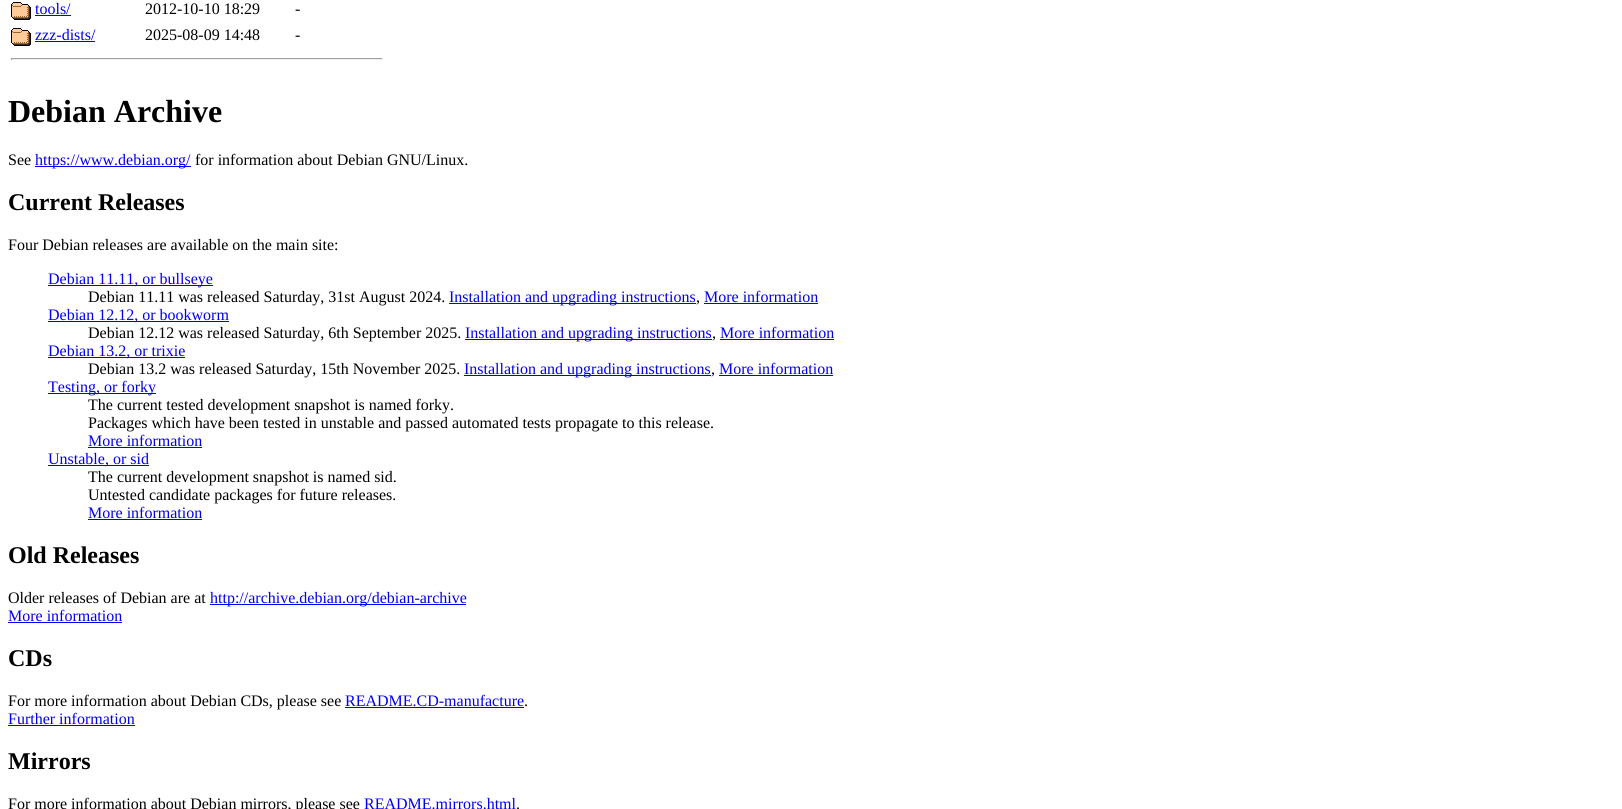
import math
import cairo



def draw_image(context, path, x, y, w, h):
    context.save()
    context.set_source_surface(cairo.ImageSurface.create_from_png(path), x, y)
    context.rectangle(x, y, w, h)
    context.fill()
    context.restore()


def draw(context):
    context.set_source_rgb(1, 1, 1)
    context.paint()
    draw_image(context, "images/1.png", 11, 2, 20, 18)
    context.set_source_rgb(0, 0, 238 / 255)
    context.rectangle(35, 15, 36, 1)
    context.fill()
    draw_image(context, "images/1.png", 11, 28, 20, 18)
    context.rectangle(35, 41, 60, 1)
    context.fill()
    context.set_source_rgb(159 / 255, 159 / 255, 159 / 255)
    context.rectangle(11, 58, 372, 1)
    context.fill()
    context.set_source_rgb(238 / 255, 238 / 255, 238 / 255)
    context.rectangle(382, 58, 1, 2)
    context.fill()
    context.rectangle(11, 59, 372, 1)
    context.fill()
    context.set_source_rgb(159 / 255, 159 / 255, 159 / 255)
    context.rectangle(11, 58, 1, 2)
    context.fill()
    context.set_source_rgb(0, 0, 238 / 255)
    context.rectangle(35, 166, 156, 1)
    context.fill()
    context.rectangle(48, 285, 165, 1)
    context.fill()
    context.rectangle(449, 303, 247, 1)
    context.fill()
    context.rectangle(704, 303, 114, 1)
    context.fill()
    context.rectangle(48, 321, 181, 1)
    context.fill()
    context.rectangle(465, 339, 247, 1)
    context.fill()
    context.rectangle(720, 339, 114, 1)
    context.fill()
    context.rectangle(48, 357, 137, 1)
    context.fill()
    context.rectangle(464, 375, 247, 1)
    context.fill()
    context.rectangle(719, 375, 114, 1)
    context.fill()
    context.rectangle(48, 393, 108, 1)
    context.fill()
    context.rectangle(88, 447, 114, 1)
    context.fill()
    context.rectangle(48, 465, 101, 1)
    context.fill()
    context.rectangle(88, 519, 114, 1)
    context.fill()
    context.rectangle(210, 604, 256, 1)
    context.fill()
    context.rectangle(8, 622, 114, 1)
    context.fill()
    context.rectangle(345, 707, 179, 1)
    context.fill()
    context.rectangle(8, 725, 127, 1)
    context.fill()
    context.select_font_face("Liberation Serif")
    context.set_font_size(16)
    context.move_to(35, 14)
    context.show_text("tools/")
    context.set_source_rgb(0, 0, 0)
    context.move_to(145, 14)
    context.show_text("2012-10-10 18:29")
    context.move_to(295, 14)
    context.show_text("-")
    context.set_source_rgb(0, 0, 238 / 255)
    context.move_to(35, 40)
    context.show_text("zzz-dists/")
    context.set_source_rgb(0, 0, 0)
    context.move_to(145, 40)
    context.show_text("2025-08-09 14:48")
    context.move_to(295, 40)
    context.show_text("-")
    context.select_font_face("Liberation Serif", cairo.FontSlant.NORMAL, cairo.FontWeight.BOLD)
    context.set_font_size(32)
    context.move_to(8, 122)
    context.show_text("Debian Archive")
    context.select_font_face("Liberation Serif")
    context.set_font_size(16)
    context.move_to(8, 165)
    context.show_text("See")
    context.set_source_rgb(0, 0, 238 / 255)
    context.move_to(35, 165)
    context.show_text("https://www.debian.org/")
    context.set_source_rgb(0, 0, 0)
    context.move_to(195, 165)
    context.show_text("for information about Debian GNU/Linux.")
    context.select_font_face("Liberation Serif", cairo.FontSlant.NORMAL, cairo.FontWeight.BOLD)
    context.set_font_size(24)
    context.move_to(8, 210)
    context.show_text("Current Releases")
    context.select_font_face("Liberation Serif")
    context.set_font_size(16)
    context.move_to(8, 250)
    context.show_text("Four Debian releases are available on the main site:")
    context.set_source_rgb(0, 0, 238 / 255)
    context.move_to(48, 284)
    context.show_text("Debian 11.11, or bullseye")
    context.set_source_rgb(0, 0, 0)
    context.move_to(88, 302)
    context.show_text("Debian 11.11 was released Saturday, 31st August 2024.")
    context.set_source_rgb(0, 0, 238 / 255)
    context.move_to(449, 302)
    context.show_text("Installation and upgrading instructions")
    context.set_source_rgb(0, 0, 0)
    context.move_to(696, 302)
    context.show_text(",")
    context.set_source_rgb(0, 0, 238 / 255)
    context.move_to(704, 302)
    context.show_text("More information")
    context.move_to(48, 320)
    context.show_text("Debian 12.12, or bookworm")
    context.set_source_rgb(0, 0, 0)
    context.move_to(88, 338)
    context.show_text("Debian 12.12 was released Saturday, 6th September 2025.")
    context.set_source_rgb(0, 0, 238 / 255)
    context.move_to(465, 338)
    context.show_text("Installation and upgrading instructions")
    context.set_source_rgb(0, 0, 0)
    context.move_to(712, 338)
    context.show_text(",")
    context.set_source_rgb(0, 0, 238 / 255)
    context.move_to(720, 338)
    context.show_text("More information")
    context.move_to(48, 356)
    context.show_text("Debian 13.2, or trixie")
    context.set_source_rgb(0, 0, 0)
    context.move_to(88, 374)
    context.show_text("Debian 13.2 was released Saturday, 15th November 2025.")
    context.set_source_rgb(0, 0, 238 / 255)
    context.move_to(464, 374)
    context.show_text("Installation and upgrading instructions")
    context.set_source_rgb(0, 0, 0)
    context.move_to(711, 374)
    context.show_text(",")
    context.set_source_rgb(0, 0, 238 / 255)
    context.move_to(719, 374)
    context.show_text("More information")
    context.move_to(48, 392)
    context.show_text("Testing, or forky")
    context.set_source_rgb(0, 0, 0)
    context.move_to(88, 410)
    context.show_text("The current tested development snapshot is named forky.")
    context.move_to(88, 428)
    context.show_text("Packages which have been tested in unstable and passed automated tests propagate to this release.")
    context.set_source_rgb(0, 0, 238 / 255)
    context.move_to(88, 446)
    context.show_text("More information")
    context.move_to(48, 464)
    context.show_text("Unstable, or sid")
    context.set_source_rgb(0, 0, 0)
    context.move_to(88, 482)
    context.show_text("The current development snapshot is named sid.")
    context.move_to(88, 500)
    context.show_text("Untested candidate packages for future releases.")
    context.set_source_rgb(0, 0, 238 / 255)
    context.move_to(88, 518)
    context.show_text("More information")
    context.select_font_face("Liberation Serif", cairo.FontSlant.NORMAL, cairo.FontWeight.BOLD)
    context.set_font_size(24)
    context.set_source_rgb(0, 0, 0)
    context.move_to(8, 563)
    context.show_text("Old Releases")
    context.select_font_face("Liberation Serif")
    context.set_font_size(16)
    context.move_to(8, 603)
    context.show_text("Older releases of Debian are at")
    context.set_source_rgb(0, 0, 238 / 255)
    context.move_to(210, 603)
    context.show_text("http://archive.debian.org/debian-archive")
    context.move_to(8, 621)
    context.show_text("More information")
    context.select_font_face("Liberation Serif", cairo.FontSlant.NORMAL, cairo.FontWeight.BOLD)
    context.set_font_size(24)
    context.set_source_rgb(0, 0, 0)
    context.move_to(8, 666)
    context.show_text("CDs")
    context.select_font_face("Liberation Serif")
    context.set_font_size(16)
    context.move_to(8, 706)
    context.show_text("For more information about Debian CDs, please see")
    context.set_source_rgb(0, 0, 238 / 255)
    context.move_to(345, 706)
    context.show_text("README.CD-manufacture")
    context.set_source_rgb(0, 0, 0)
    context.move_to(524, 706)
    context.show_text(".")
    context.set_source_rgb(0, 0, 238 / 255)
    context.move_to(8, 724)
    context.show_text("Further information")
    context.select_font_face("Liberation Serif", cairo.FontSlant.NORMAL, cairo.FontWeight.BOLD)
    context.set_font_size(24)
    context.set_source_rgb(0, 0, 0)
    context.move_to(8, 769)
    context.show_text("Mirrors")
    context.select_font_face("Liberation Serif")
    context.set_font_size(16)
    context.move_to(8, 809)
    context.show_text("For more information about Debian mirrors, please see")
    context.set_source_rgb(0, 0, 238 / 255)
    context.move_to(364, 809)
    context.show_text("README.mirrors.html")
    context.set_source_rgb(0, 0, 0)
    context.move_to(516, 809)
    context.show_text(".")


surface = cairo.ImageSurface(cairo.Format.RGB24, 1622, 809)
context = cairo.Context(surface)
options = cairo.FontOptions()
options.set_hint_metrics(cairo.HintMetrics.OFF)
options.set_hint_style(cairo.HintStyle.NONE)
context.set_font_options(options)
context.set_miter_limit(4)
draw(context)
surface.write_to_png("out.png")
